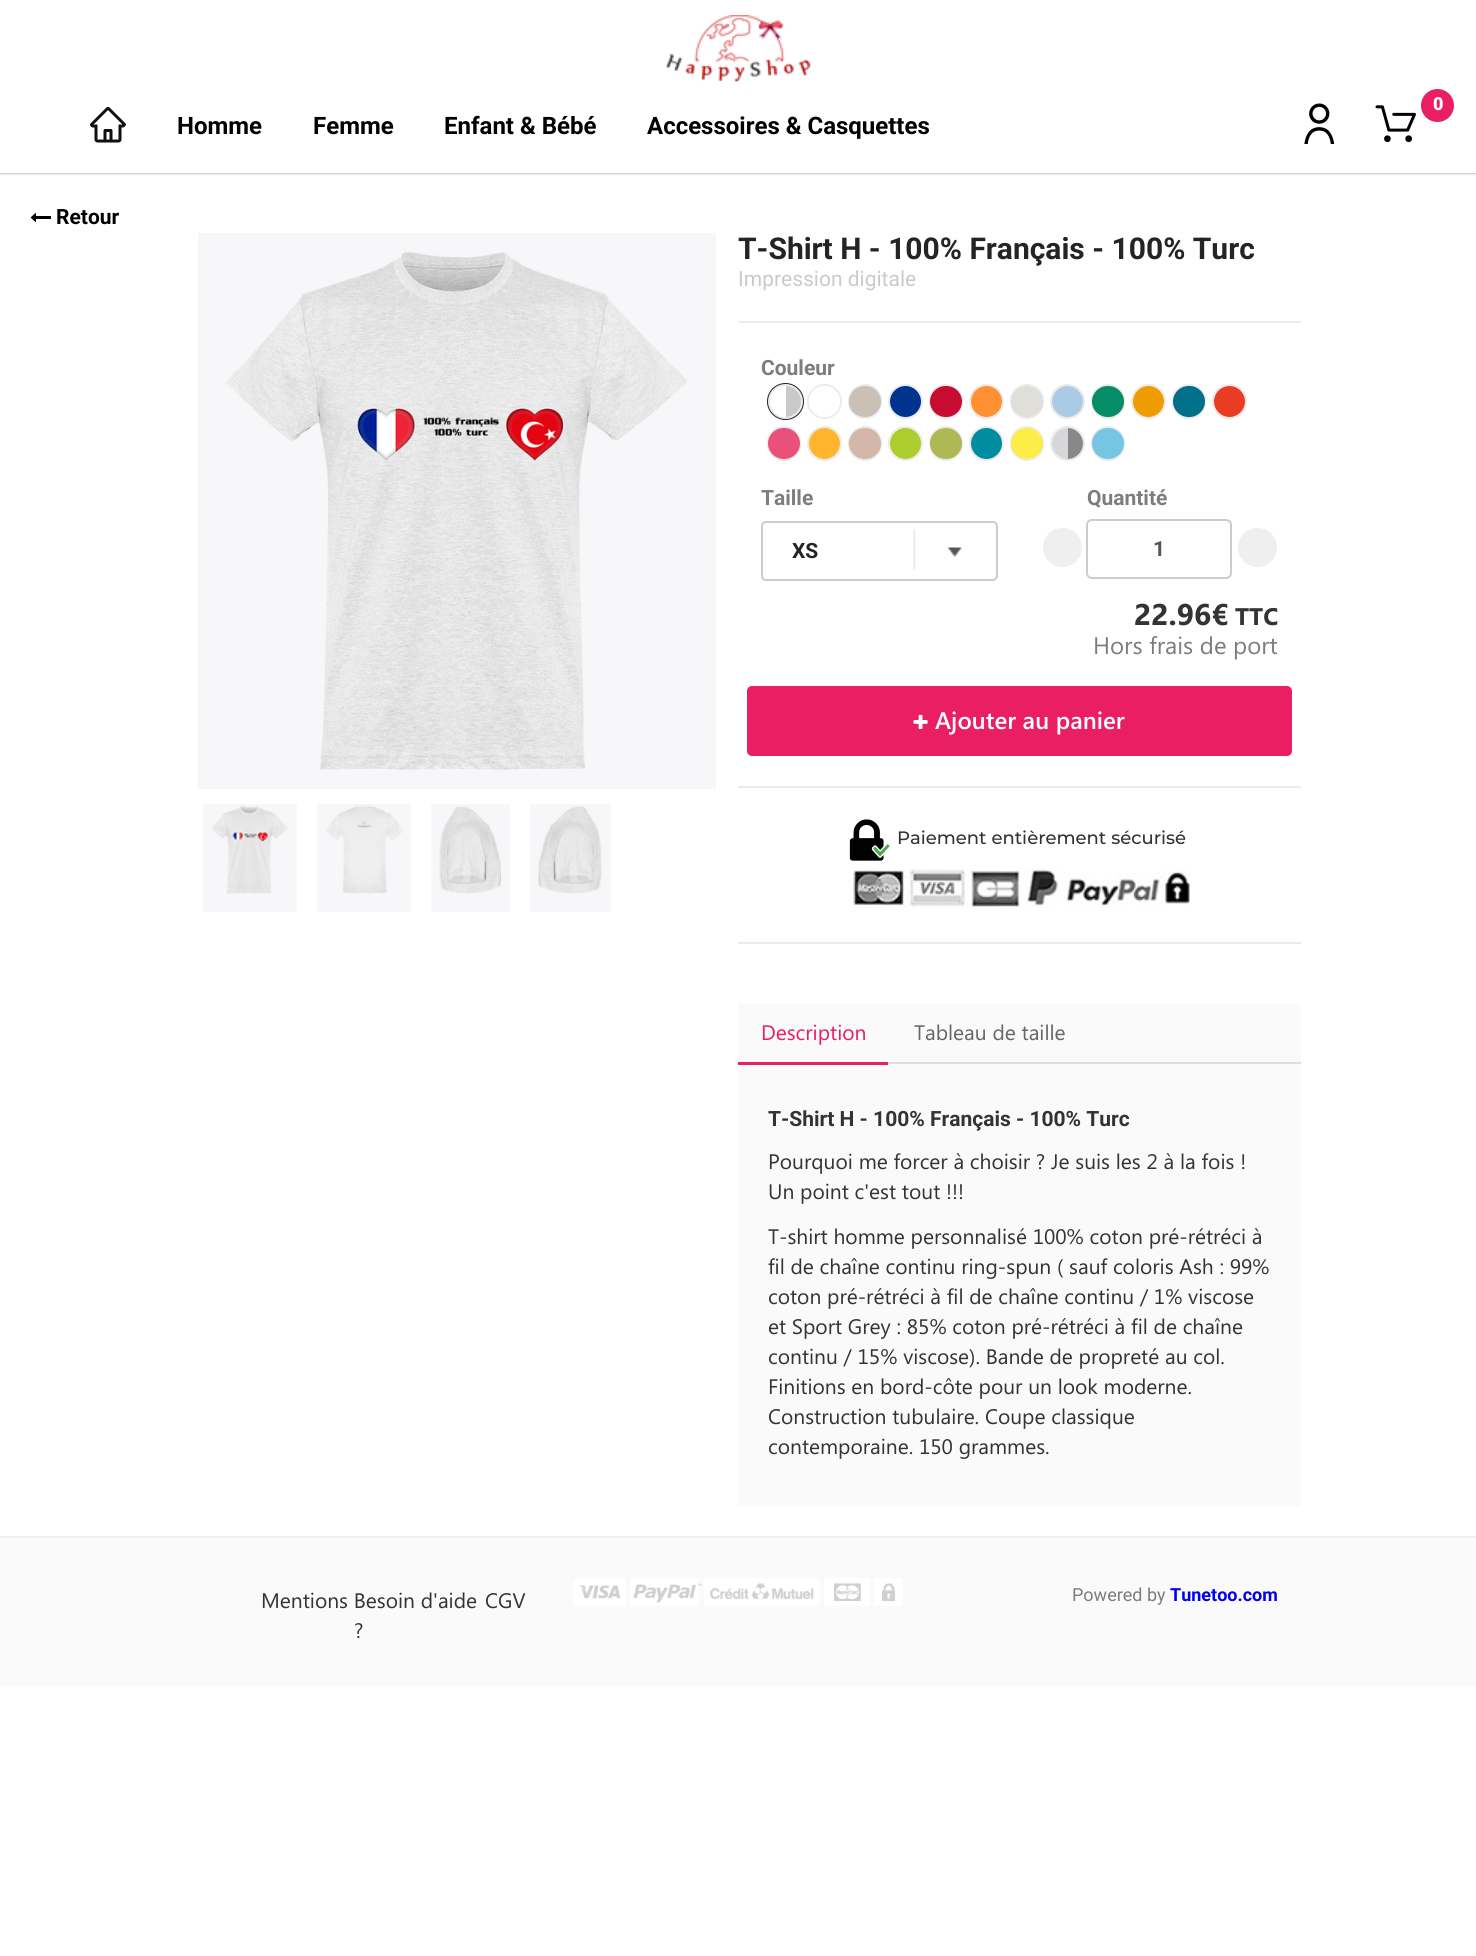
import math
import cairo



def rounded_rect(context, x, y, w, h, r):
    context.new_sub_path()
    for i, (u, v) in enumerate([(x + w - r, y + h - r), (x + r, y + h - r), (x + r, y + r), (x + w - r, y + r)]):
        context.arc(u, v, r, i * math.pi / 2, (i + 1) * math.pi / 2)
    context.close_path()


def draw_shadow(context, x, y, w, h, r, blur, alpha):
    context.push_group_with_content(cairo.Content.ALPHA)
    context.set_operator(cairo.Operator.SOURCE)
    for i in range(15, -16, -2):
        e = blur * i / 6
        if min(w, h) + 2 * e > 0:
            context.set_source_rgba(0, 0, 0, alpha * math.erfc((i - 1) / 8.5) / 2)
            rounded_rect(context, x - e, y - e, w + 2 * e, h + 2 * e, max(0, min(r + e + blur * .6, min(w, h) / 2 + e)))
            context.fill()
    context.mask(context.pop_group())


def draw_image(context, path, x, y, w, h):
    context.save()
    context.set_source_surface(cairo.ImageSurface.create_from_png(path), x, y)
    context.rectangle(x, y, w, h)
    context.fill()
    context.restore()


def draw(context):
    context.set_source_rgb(1, 1, 1)
    context.paint()
    context.set_source_rgb(0, 0, 0)
    draw_shadow(context, 0, 0, 1476, 173, 0, 1.5, 0.24)
    draw_shadow(context, 0, 2, 1476, 172, 0, 1, 0.12)
    context.set_source_rgb(1, 1, 1)
    context.rectangle(0, 0, 1476, 173)
    context.fill()
    draw_image(context, "images/1.png", 666, 15, 145, 68)
    draw_image(context, "images/2.png", 1304, 103, 31, 41)
    draw_image(context, "images/3.png", 1375, 105, 41, 38)
    context.set_source_rgb(233 / 255, 30 / 255, 99 / 255)
    context.arc(1437.5, 105.5, 16.5, 0, 2 * math.pi)
    context.fill()
    draw_image(context, "images/4.png", 90, 107, 36, 36)
    draw_image(context, "images/5.png", 30, 213, 21, 9)
    context.set_source_rgb(247 / 255, 247 / 255, 249 / 255)
    context.rectangle(198, 233, 518, 556)
    context.fill()
    draw_image(context, "images/6.png", 226, 252, 461, 518)
    context.rectangle(203, 804, 94, 108)
    context.fill()
    draw_image(context, "images/7.png", 211, 805, 77, 89)
    context.rectangle(317, 804, 94, 108)
    context.fill()
    draw_image(context, "images/8.png", 325, 805, 79, 89)
    context.rectangle(431, 804, 79, 108)
    context.fill()
    draw_image(context, "images/9.png", 439, 806, 62, 88)
    context.rectangle(530, 804, 81, 108)
    context.fill()
    draw_image(context, "images/10.png", 538, 806, 64, 88)
    context.set_source_rgb(235 / 255, 235 / 255, 235 / 255)
    context.rectangle(738, 321, 563, 2)
    context.fill()
    context.arc(785.5, 401.5, 17.5, 0, 2 * math.pi)
    context.set_source_rgb(36 / 255, 36 / 255, 36 / 255)
    context.stroke()
    context.arc(785.5, 401.5, 16.5, 0, 2 * math.pi)
    context.set_source_rgb(235 / 255, 235 / 255, 235 / 255)
    context.stroke()
    context.save()
    rounded_rect(context, 770, 386, 31, 31, 15.5)
    context.clip()
    context.set_source_rgb(1, 1, 1)
    context.new_path()
    context.move_to(785.5, 386)
    context.line_to(786, 386)
    context.line_to(786, 417)
    context.line_to(785.5, 417)
    context.curve_to(777, 417, 770, 410, 770, 401.5)
    context.curve_to(770, 393, 777, 386, 785.5, 386)
    context.close_path()
    context.fill()
    context.set_source_rgb(201 / 255, 201 / 255, 201 / 255)
    context.new_path()
    context.move_to(786, 386)
    context.curve_to(794.5, 386, 801, 392.5, 801, 401)
    context.line_to(801, 402)
    context.curve_to(801, 410.5, 794.5, 417, 786, 417)
    context.close_path()
    context.fill()
    context.restore()
    context.arc(824.5, 401.5, 16.5, 0, 2 * math.pi)
    context.stroke()
    context.set_source_rgb(1, 1, 1)
    context.arc(824.5, 401.5, 15.5, 0, 2 * math.pi)
    context.fill()
    rounded_rect(context, 849, 385, 32, 33, 16)
    context.set_source_rgb(235 / 255, 235 / 255, 235 / 255)
    context.stroke()
    context.set_source_rgb(202 / 255, 192 / 255, 182 / 255)
    rounded_rect(context, 849, 386, 32, 31, 15.5)
    context.fill()
    context.arc(905.5, 401.5, 16.5, 0, 2 * math.pi)
    context.set_source_rgb(235 / 255, 235 / 255, 235 / 255)
    context.stroke()
    context.set_source_rgb(0, 51 / 255, 141 / 255)
    context.arc(905.5, 401.5, 15.5, 0, 2 * math.pi)
    context.fill()
    rounded_rect(context, 930, 385, 32, 33, 16)
    context.set_source_rgb(235 / 255, 235 / 255, 235 / 255)
    context.stroke()
    context.set_source_rgb(198 / 255, 12 / 255, 48 / 255)
    rounded_rect(context, 930, 386, 32, 31, 15.5)
    context.fill()
    context.arc(986.5, 401.5, 16.5, 0, 2 * math.pi)
    context.set_source_rgb(235 / 255, 235 / 255, 235 / 255)
    context.stroke()
    context.set_source_rgb(1, 145 / 255, 51 / 255)
    context.arc(986.5, 401.5, 15.5, 0, 2 * math.pi)
    context.fill()
    rounded_rect(context, 1011, 385, 32, 33, 16)
    context.set_source_rgb(235 / 255, 235 / 255, 235 / 255)
    context.stroke()
    context.set_source_rgb(224 / 255, 222 / 255, 217 / 255)
    rounded_rect(context, 1011, 386, 32, 31, 15.5)
    context.fill()
    context.arc(1067.5, 401.5, 16.5, 0, 2 * math.pi)
    context.set_source_rgb(235 / 255, 235 / 255, 235 / 255)
    context.stroke()
    context.set_source_rgb(170 / 255, 202 / 255, 230 / 255)
    context.arc(1067.5, 401.5, 15.5, 0, 2 * math.pi)
    context.fill()
    rounded_rect(context, 1092, 385, 32, 33, 16)
    context.set_source_rgb(235 / 255, 235 / 255, 235 / 255)
    context.stroke()
    context.set_source_rgb(6 / 255, 140 / 255, 103 / 255)
    rounded_rect(context, 1092, 386, 32, 31, 15.5)
    context.fill()
    context.arc(1148.5, 401.5, 16.5, 0, 2 * math.pi)
    context.set_source_rgb(235 / 255, 235 / 255, 235 / 255)
    context.stroke()
    context.set_source_rgb(239 / 255, 156 / 255, 0)
    context.arc(1148.5, 401.5, 15.5, 0, 2 * math.pi)
    context.fill()
    rounded_rect(context, 1173, 385, 32, 33, 16)
    context.set_source_rgb(235 / 255, 235 / 255, 235 / 255)
    context.stroke()
    context.set_source_rgb(0, 113 / 255, 137 / 255)
    rounded_rect(context, 1173, 386, 32, 31, 15.5)
    context.fill()
    context.arc(1229.5, 401.5, 16.5, 0, 2 * math.pi)
    context.set_source_rgb(235 / 255, 235 / 255, 235 / 255)
    context.stroke()
    context.set_source_rgb(234 / 255, 60 / 255, 35 / 255)
    context.arc(1229.5, 401.5, 15.5, 0, 2 * math.pi)
    context.fill()
    rounded_rect(context, 768, 427, 32, 33, 16)
    context.set_source_rgb(235 / 255, 235 / 255, 235 / 255)
    context.stroke()
    context.set_source_rgb(233 / 255, 81 / 255, 122 / 255)
    rounded_rect(context, 768, 428, 32, 31, 15.5)
    context.fill()
    context.arc(824.5, 443.5, 16.5, 0, 2 * math.pi)
    context.set_source_rgb(235 / 255, 235 / 255, 235 / 255)
    context.stroke()
    context.set_source_rgb(1, 181 / 255, 45 / 255)
    context.arc(824.5, 443.5, 15.5, 0, 2 * math.pi)
    context.fill()
    rounded_rect(context, 849, 427, 32, 33, 16)
    context.set_source_rgb(235 / 255, 235 / 255, 235 / 255)
    context.stroke()
    context.set_source_rgb(212 / 255, 183 / 255, 169 / 255)
    rounded_rect(context, 849, 428, 32, 31, 15.5)
    context.fill()
    context.arc(905.5, 443.5, 16.5, 0, 2 * math.pi)
    context.set_source_rgb(235 / 255, 235 / 255, 235 / 255)
    context.stroke()
    context.set_source_rgb(171 / 255, 205 / 255, 45 / 255)
    context.arc(905.5, 443.5, 15.5, 0, 2 * math.pi)
    context.fill()
    rounded_rect(context, 930, 427, 32, 33, 16)
    context.set_source_rgb(235 / 255, 235 / 255, 235 / 255)
    context.stroke()
    context.set_source_rgb(174 / 255, 184 / 255, 85 / 255)
    rounded_rect(context, 930, 428, 32, 31, 15.5)
    context.fill()
    context.arc(986.5, 443.5, 16.5, 0, 2 * math.pi)
    context.set_source_rgb(235 / 255, 235 / 255, 235 / 255)
    context.stroke()
    context.set_source_rgb(0, 141 / 255, 159 / 255)
    context.arc(986.5, 443.5, 15.5, 0, 2 * math.pi)
    context.fill()
    rounded_rect(context, 1011, 427, 32, 33, 16)
    context.set_source_rgb(235 / 255, 235 / 255, 235 / 255)
    context.stroke()
    context.set_source_rgb(252 / 255, 238 / 255, 70 / 255)
    rounded_rect(context, 1011, 428, 32, 31, 15.5)
    context.fill()
    context.arc(1067.5, 443.5, 16.5, 0, 2 * math.pi)
    context.set_source_rgb(235 / 255, 235 / 255, 235 / 255)
    context.stroke()
    context.save()
    rounded_rect(context, 1052, 428, 31, 31, 15.5)
    context.clip()
    context.set_source_rgb(214 / 255, 215 / 255, 217 / 255)
    context.new_path()
    context.move_to(1067.5, 428)
    context.line_to(1068, 428)
    context.line_to(1068, 459)
    context.line_to(1067.5, 459)
    context.curve_to(1059, 459, 1052, 452, 1052, 443.5)
    context.curve_to(1052, 435, 1059, 428, 1067.5, 428)
    context.close_path()
    context.fill()
    context.set_source_rgb(136 / 255, 135 / 255, 137 / 255)
    context.new_path()
    context.move_to(1068, 428)
    context.curve_to(1076.5, 428, 1083, 434.5, 1083, 443)
    context.line_to(1083, 444)
    context.curve_to(1083, 452.5, 1076.5, 459, 1068, 459)
    context.close_path()
    context.fill()
    context.restore()
    rounded_rect(context, 1092, 427, 32, 33, 16)
    context.stroke()
    context.set_source_rgb(118 / 255, 197 / 255, 227 / 255)
    rounded_rect(context, 1092, 428, 32, 31, 15.5)
    context.fill()
    draw_image(context, "images/11.png", 913, 529, 49, 41)
    rounded_rect(context, 762, 522, 235, 58, 4)
    context.set_source_rgb(204 / 255, 204 / 255, 204 / 255)
    context.stroke()
    context.set_source_rgb(239 / 255, 239 / 255, 239 / 255)
    context.arc(1062.5, 547.5, 19.5, 0, 2 * math.pi)
    context.fill()
    rounded_rect(context, 1087, 520, 144, 58, 5)
    context.set_source_rgb(204 / 255, 204 / 255, 204 / 255)
    context.stroke()
    context.set_source_rgb(239 / 255, 239 / 255, 239 / 255)
    context.arc(1257.5, 547.5, 19.5, 0, 2 * math.pi)
    context.fill()
    context.set_source_rgb(233 / 255, 30 / 255, 99 / 255)
    rounded_rect(context, 747, 686, 545, 70, 5)
    context.fill()
    draw_image(context, "images/12.png", 913, 714, 15, 15)
    context.set_source_rgb(235 / 255, 235 / 255, 235 / 255)
    context.rectangle(738, 786, 563, 2)
    context.fill()
    draw_image(context, "images/13.png", 849, 819, 41, 42)
    draw_image(context, "images/14.png", 853, 869, 337, 39)
    context.rectangle(738, 942, 563, 2)
    context.fill()
    context.set_source_rgb(250 / 255, 250 / 255, 250 / 255)
    context.rectangle(738, 1004, 563, 502)
    context.fill()
    context.set_source_rgb(221 / 255, 221 / 255, 221 / 255)
    context.rectangle(888, 1062, 413, 2)
    context.fill()
    context.set_source_rgb(233 / 255, 30 / 255, 99 / 255)
    context.rectangle(738, 1062, 150, 3)
    context.fill()
    context.set_source_rgb(250 / 255, 250 / 255, 250 / 255)
    context.rectangle(0, 1538, 1476, 148)
    context.fill()
    context.set_source_rgb(241 / 255, 241 / 255, 241 / 255)
    context.rectangle(0, 1536, 1476, 2)
    context.fill()
    draw_image(context, "images/15.png", 573, 1578, 330, 28)
    context.select_font_face("Roboto Black")
    context.set_font_size(18)
    context.set_source_rgb(1, 1, 1)
    context.move_to(1433, 110)
    context.show_text("0")
    context.select_font_face("Roboto", cairo.FontSlant.NORMAL, cairo.FontWeight.BOLD)
    context.set_font_size(24)
    context.set_source_rgb(0, 0, 0)
    context.move_to(177, 134)
    context.show_text("Homme")
    context.move_to(313, 134)
    context.show_text("Femme")
    context.move_to(444, 134)
    context.show_text("Enfant & Bébé")
    context.move_to(647, 134)
    context.show_text("Accessoires & Casquettes")
    context.set_font_size(21)
    context.move_to(56, 224)
    context.show_text("Retour")
    context.set_font_size(30)
    context.set_source_rgb(36 / 255, 36 / 255, 36 / 255)
    context.move_to(738, 259)
    context.show_text("T-Shirt H - 100% Français - 100% Turc")
    context.select_font_face("Roboto")
    context.set_font_size(21)
    context.set_source_rgb(202 / 255, 202 / 255, 202 / 255)
    context.move_to(738, 286)
    context.show_text("Impression digitale")
    context.select_font_face("Roboto", cairo.FontSlant.NORMAL, cairo.FontWeight.BOLD)
    context.set_source_rgb(125 / 255, 125 / 255, 125 / 255)
    context.move_to(761, 375)
    context.show_text("Couleur")
    context.move_to(761, 505)
    context.show_text("Taille")
    context.set_source_rgb(36 / 255, 36 / 255, 36 / 255)
    context.move_to(792, 558)
    context.show_text("XS")
    context.set_source_rgb(125 / 255, 125 / 255, 125 / 255)
    context.move_to(1087, 505)
    context.show_text("Quantité")
    context.set_source_rgb(85 / 255, 85 / 255, 85 / 255)
    context.move_to(1153, 556)
    context.show_text("1")
    context.select_font_face("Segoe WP", cairo.FontSlant.NORMAL, cairo.FontWeight.BOLD)
    context.set_font_size(30)
    context.set_source_rgb(51 / 255, 51 / 255, 51 / 255)
    context.move_to(1134, 625)
    context.show_text("22.96€")
    context.set_font_size(24)
    context.move_to(1235, 625)
    context.show_text("TTC")
    context.select_font_face("Segoe UI")
    context.set_source_rgb(125 / 255, 125 / 255, 125 / 255)
    context.move_to(1093, 654)
    context.show_text("Hors frais de port")
    context.select_font_face("Segoe WP SemiBold")
    context.set_source_rgb(1, 1, 1)
    context.move_to(935, 729)
    context.show_text("Ajouter au panier")
    context.select_font_face("Montserrat Medium")
    context.set_font_size(18)
    context.set_source_rgb(51 / 255, 51 / 255, 51 / 255)
    context.move_to(897, 844)
    context.show_text("Paiement entièrement sécurisé")
    context.select_font_face("Segoe UI")
    context.set_font_size(21)
    context.set_source_rgb(233 / 255, 30 / 255, 99 / 255)
    context.move_to(761, 1040)
    context.show_text("Description")
    context.set_source_rgb(102 / 255, 102 / 255, 102 / 255)
    context.move_to(914, 1040)
    context.show_text("Tableau de taille")
    context.select_font_face("Roboto", cairo.FontSlant.NORMAL, cairo.FontWeight.BOLD)
    context.set_source_rgb(51 / 255, 51 / 255, 51 / 255)
    context.move_to(768, 1126)
    context.show_text("T-Shirt H - 100% Français - 100% Turc")
    context.select_font_face("Segoe UI")
    context.move_to(768, 1169)
    context.show_text("Pourquoi me forcer à choisir ? Je suis les 2 à la fois !")
    context.move_to(768, 1199)
    context.show_text("Un point c'est tout !!!")
    context.move_to(768, 1244)
    context.show_text("T-shirt homme personnalisé 100% coton pré-rétréci à")
    context.move_to(768, 1274)
    context.show_text("fil de chaîne continu ring-spun ( sauf coloris Ash : 99%")
    context.move_to(768, 1304)
    context.show_text("coton pré-rétréci à fil de chaîne continu / 1% viscose")
    context.move_to(768, 1334)
    context.show_text("et Sport Grey : 85% coton pré-rétréci à fil de chaîne")
    context.move_to(768, 1364)
    context.show_text("continu / 15% viscose). Bande de propreté au col.")
    context.move_to(768, 1394)
    context.show_text("Finitions en bord-côte pour un look moderne.")
    context.move_to(768, 1424)
    context.show_text("Construction tubulaire. Coupe classique")
    context.move_to(768, 1454)
    context.show_text("contemporaine. 150 grammes.")
    context.move_to(261, 1608)
    context.show_text("Mentions Besoin d'aide")
    context.move_to(485, 1608)
    context.show_text("CGV")
    context.move_to(354, 1638)
    context.show_text("?")
    context.select_font_face("Roboto")
    context.set_font_size(18)
    context.set_source_rgb(125 / 255, 125 / 255, 125 / 255)
    context.move_to(1072, 1601)
    context.show_text("Powered by")
    context.select_font_face("Roboto", cairo.FontSlant.NORMAL, cairo.FontWeight.BOLD)
    context.set_source_rgb(0, 0, 238 / 255)
    context.move_to(1170, 1601)
    context.show_text("Tunetoo.com")


surface = cairo.ImageSurface(cairo.Format.RGB24, 1476, 1956)
context = cairo.Context(surface)
options = cairo.FontOptions()
options.set_hint_metrics(cairo.HintMetrics.OFF)
options.set_hint_style(cairo.HintStyle.NONE)
context.set_font_options(options)
context.set_miter_limit(4)
draw(context)
surface.write_to_png("out.png")
